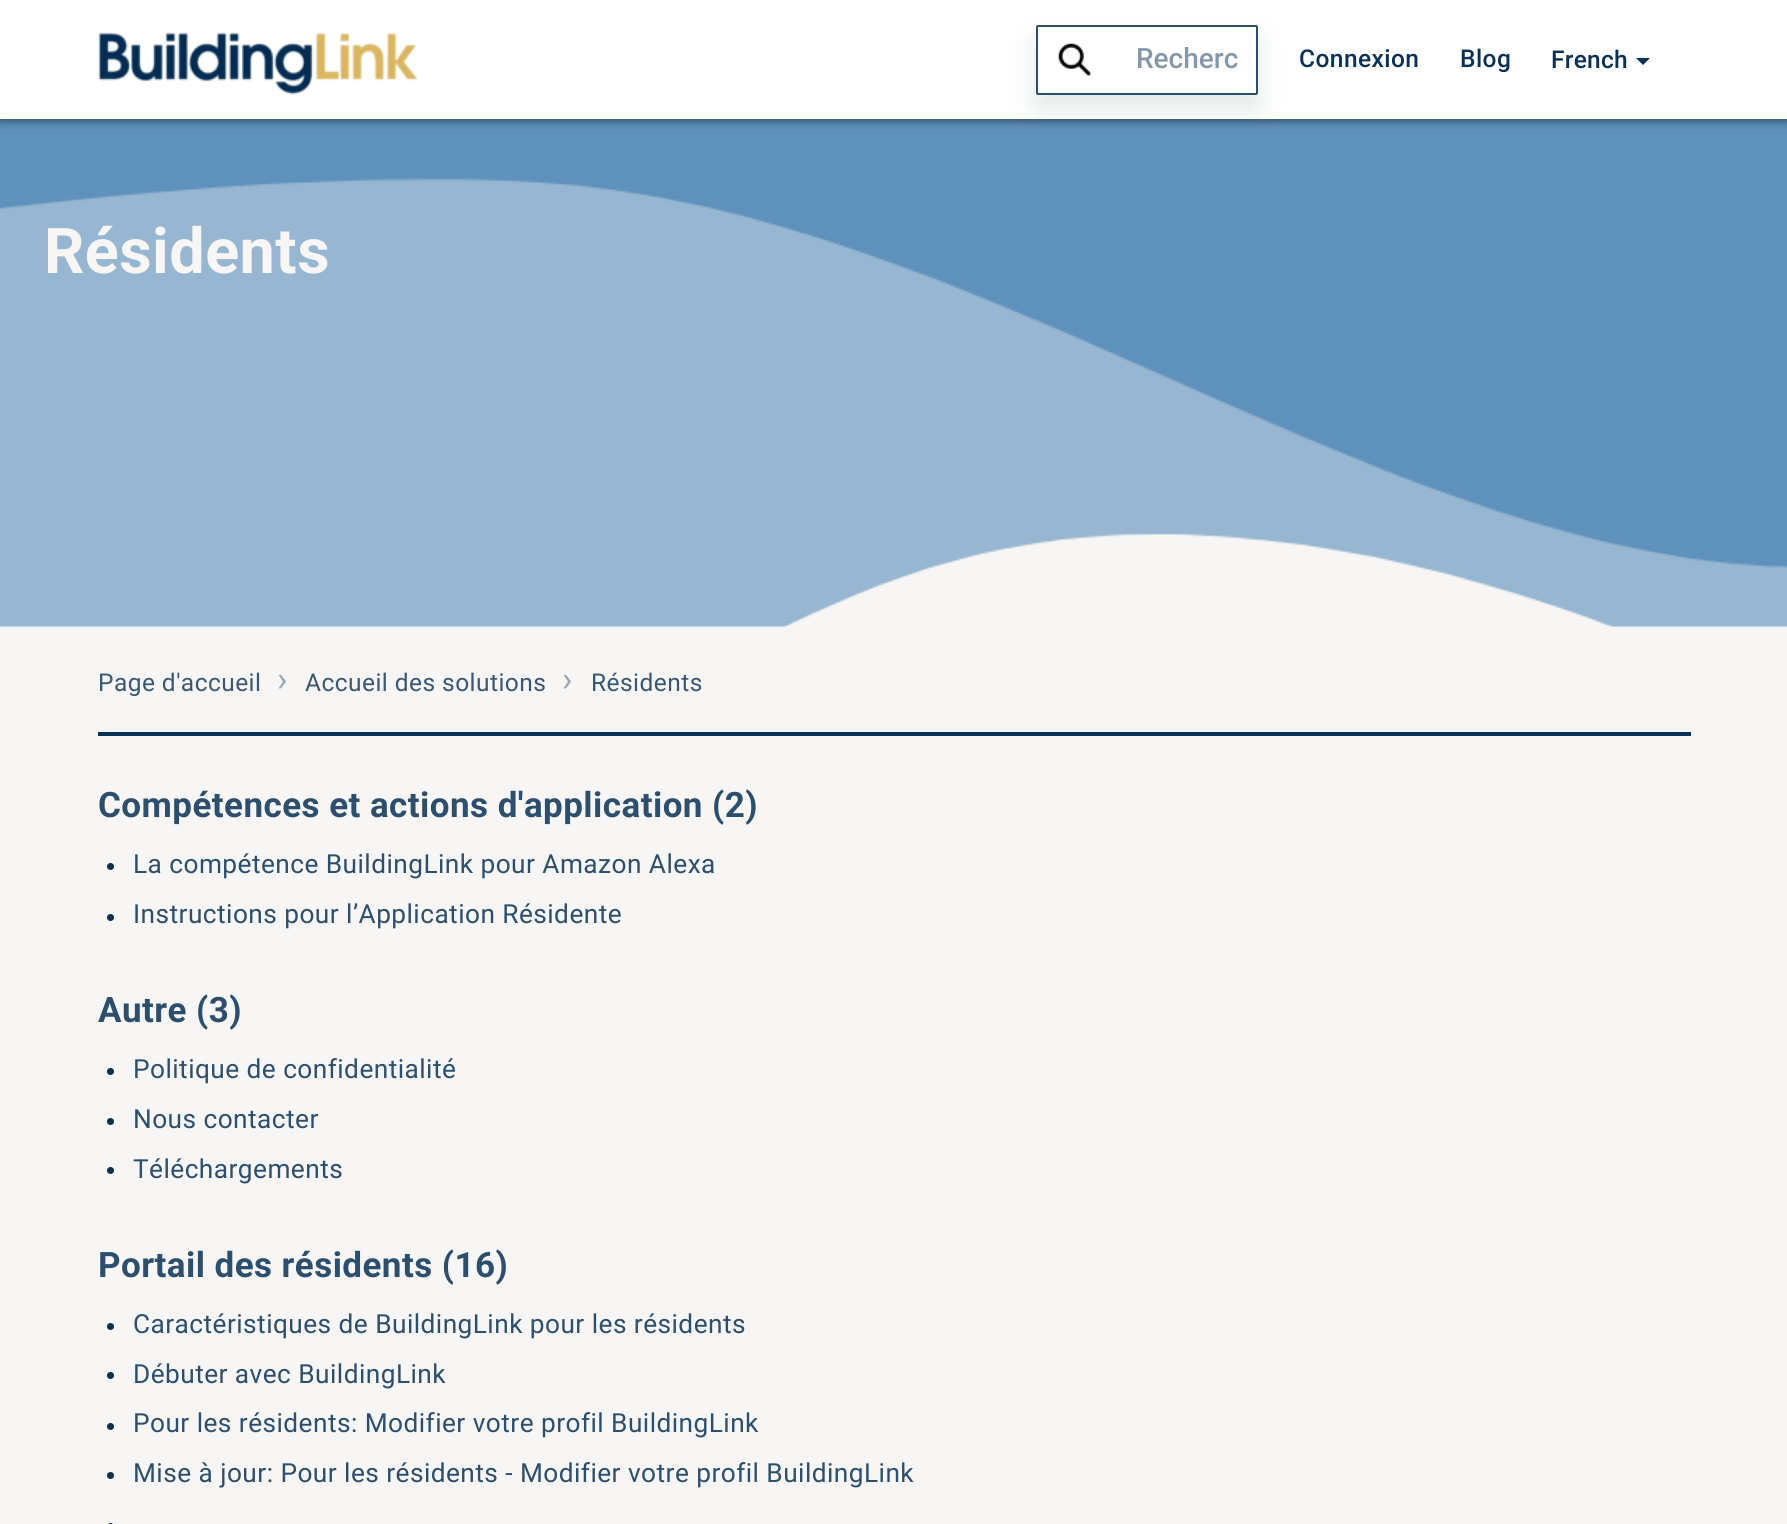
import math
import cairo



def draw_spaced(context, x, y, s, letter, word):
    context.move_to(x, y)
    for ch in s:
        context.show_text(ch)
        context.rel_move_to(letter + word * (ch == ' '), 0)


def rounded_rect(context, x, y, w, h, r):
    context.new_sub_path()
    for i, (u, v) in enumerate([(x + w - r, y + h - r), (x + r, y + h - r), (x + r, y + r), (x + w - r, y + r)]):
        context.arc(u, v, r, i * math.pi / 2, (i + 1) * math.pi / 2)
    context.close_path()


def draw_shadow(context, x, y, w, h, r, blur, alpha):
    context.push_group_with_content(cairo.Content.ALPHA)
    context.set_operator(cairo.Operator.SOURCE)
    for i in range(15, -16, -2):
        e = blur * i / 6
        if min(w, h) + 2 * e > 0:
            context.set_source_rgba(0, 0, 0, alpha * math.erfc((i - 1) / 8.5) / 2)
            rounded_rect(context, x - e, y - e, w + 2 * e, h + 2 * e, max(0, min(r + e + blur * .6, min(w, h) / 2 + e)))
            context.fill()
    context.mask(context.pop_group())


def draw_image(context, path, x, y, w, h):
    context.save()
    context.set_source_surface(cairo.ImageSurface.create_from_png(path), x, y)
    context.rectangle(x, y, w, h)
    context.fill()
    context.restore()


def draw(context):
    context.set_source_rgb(247 / 255, 246 / 255, 244 / 255)
    context.paint()
    draw_image(context, "images/3.png", 0, 119, 1787, 508)
    context.set_source_rgb(0, 0, 0)
    draw_shadow(context, 0, 2, 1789, 119, 0, 4.5, 0.5)
    context.set_source_rgb(1, 1, 1)
    context.rectangle(0, 0, 1787, 119)
    context.fill()
    draw_image(context, "images/1.png", 98, 32, 320, 63)
    context.save()
    context.set_fill_rule(cairo.FillRule.EVEN_ODD)
    context.new_path()
    context.move_to(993, 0)
    context.line_to(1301, 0)
    context.line_to(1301, 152)
    context.line_to(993, 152)
    context.close_path()
    context.move_to(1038, 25)
    context.line_to(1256, 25)
    context.curve_to(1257, 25, 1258, 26, 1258, 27)
    context.line_to(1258, 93)
    context.curve_to(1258, 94, 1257, 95, 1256, 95)
    context.line_to(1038, 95)
    context.curve_to(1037, 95, 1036, 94, 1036, 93)
    context.line_to(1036, 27)
    context.curve_to(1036, 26, 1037, 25, 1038, 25)
    context.close_path()
    context.clip()
    context.set_source_rgb(0, 62 / 255, 59 / 255)
    draw_shadow(context, 1036, 39, 222, 70, 2, 14, 0.12)
    context.restore()
    rounded_rect(context, 1037, 26, 220, 68, 1)
    context.set_source_rgb(45 / 255, 79 / 255, 110 / 255)
    context.stroke()
    draw_image(context, "images/2.png", 1058, 43, 33, 33)
    context.set_source_rgb(9 / 255, 49 / 255, 85 / 255)
    context.new_path()
    context.move_to(1636, 58)
    context.line_to(1650, 58)
    context.line_to(1643, 65)
    context.close_path()
    context.fill()
    context.rectangle(98, 732, 1593, 4)
    context.fill()
    context.arc(110.5, 866.5, 3.5, 0, 2 * math.pi)
    context.fill()
    context.arc(110.5, 917.5, 3.5, 0, 2 * math.pi)
    context.fill()
    context.arc(110.5, 1071.5, 3.5, 0, 2 * math.pi)
    context.fill()
    context.arc(110.5, 1121.5, 3.5, 0, 2 * math.pi)
    context.fill()
    context.arc(110.5, 1170.5, 3.5, 0, 2 * math.pi)
    context.fill()
    context.arc(110.5, 1326.5, 3.5, 0, 2 * math.pi)
    context.fill()
    context.arc(110.5, 1375.5, 3.5, 0, 2 * math.pi)
    context.fill()
    context.arc(110.5, 1426.5, 3.5, 0, 2 * math.pi)
    context.fill()
    context.arc(110.5, 1475.5, 3.5, 0, 2 * math.pi)
    context.fill()
    rounded_rect(context, 107, 1523, 7, 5, 3.5)
    context.fill()
    context.select_font_face("Roboto Medium")
    context.set_font_size(28)
    context.set_source_rgb(132 / 255, 152 / 255, 170 / 255)
    context.move_to(1136, 68)
    context.show_text("Recherc")
    context.set_font_size(24.5)
    context.set_source_rgb(9 / 255, 49 / 255, 85 / 255)
    draw_spaced(context, 1299, 67, "Connexion", 0.45, 0)
    draw_spaced(context, 1460, 67, "Blog", 0.45, 0)
    draw_spaced(context, 1551, 68, "French", 0.25, 0)
    context.select_font_face("Roboto", cairo.FontSlant.NORMAL, cairo.FontWeight.BOLD)
    context.set_font_size(63)
    context.set_source_rgb(247 / 255, 246 / 255, 244 / 255)
    draw_spaced(context, 44, 273, "Résidents", 0.45, 0)
    context.select_font_face("Roboto")
    context.set_font_size(24.5)
    context.set_source_rgb(57 / 255, 88 / 255, 117 / 255)
    draw_spaced(context, 98, 691, "Page d'accueil", 0.45, 0)
    context.set_font_size(35)
    context.set_source_rgb(152 / 255, 167 / 255, 180 / 255)
    draw_spaced(context, 277, 691, "›", 0.45, 0)
    context.set_font_size(24.5)
    context.set_source_rgb(57 / 255, 88 / 255, 117 / 255)
    draw_spaced(context, 305, 691, "Accueil des solutions", 0.45, 0)
    context.set_font_size(35)
    context.set_source_rgb(152 / 255, 167 / 255, 180 / 255)
    draw_spaced(context, 562, 691, "›", 0.45, 0)
    context.set_font_size(24.5)
    context.set_source_rgb(57 / 255, 88 / 255, 117 / 255)
    draw_spaced(context, 591, 691, "Résidents", 0.45, 0)
    context.select_font_face("Roboto", cairo.FontSlant.NORMAL, cairo.FontWeight.BOLD)
    context.set_font_size(35)
    context.set_source_rgb(45 / 255, 79 / 255, 110 / 255)
    draw_spaced(context, 98, 817, "Compétences et actions d'application (2)", 0.45, 0)
    context.select_font_face("Roboto")
    context.set_font_size(26.25)
    draw_spaced(context, 133, 873, "La compétence BuildingLink pour Amazon Alexa", 0.45, 0)
    draw_spaced(context, 133, 923, "Instructions pour l’Application Résidente", 0.45, 0)
    context.select_font_face("Roboto", cairo.FontSlant.NORMAL, cairo.FontWeight.BOLD)
    context.set_font_size(35)
    draw_spaced(context, 98, 1022, "Autre (3)", 0.45, 0)
    context.select_font_face("Roboto")
    context.set_font_size(26.25)
    draw_spaced(context, 133, 1078, "Politique de confidentialité", 0.45, 0)
    draw_spaced(context, 133, 1128, "Nous contacter", 0.45, 0)
    draw_spaced(context, 133, 1178, "Téléchargements", 0.45, 0)
    context.select_font_face("Roboto", cairo.FontSlant.NORMAL, cairo.FontWeight.BOLD)
    context.set_font_size(35)
    draw_spaced(context, 98, 1277, "Portail des résidents (16)", 0.45, 0)
    context.select_font_face("Roboto")
    context.set_font_size(26.25)
    draw_spaced(context, 133, 1333, "Caractéristiques de BuildingLink pour les résidents", 0.45, 0)
    draw_spaced(context, 133, 1383, "Débuter avec BuildingLink", 0.45, 0)
    draw_spaced(context, 133, 1432, "Pour les résidents: Modifier votre profil BuildingLink", 0.45, 0)
    draw_spaced(context, 133, 1482, "Mise à jour: Pour les résidents - Modifier votre profil BuildingLink", 0.45, 0)


surface = cairo.ImageSurface(cairo.Format.RGB24, 1787, 1524)
context = cairo.Context(surface)
options = cairo.FontOptions()
options.set_hint_metrics(cairo.HintMetrics.OFF)
options.set_hint_style(cairo.HintStyle.NONE)
context.set_font_options(options)
context.set_miter_limit(4)
draw(context)
surface.write_to_png("out.png")
